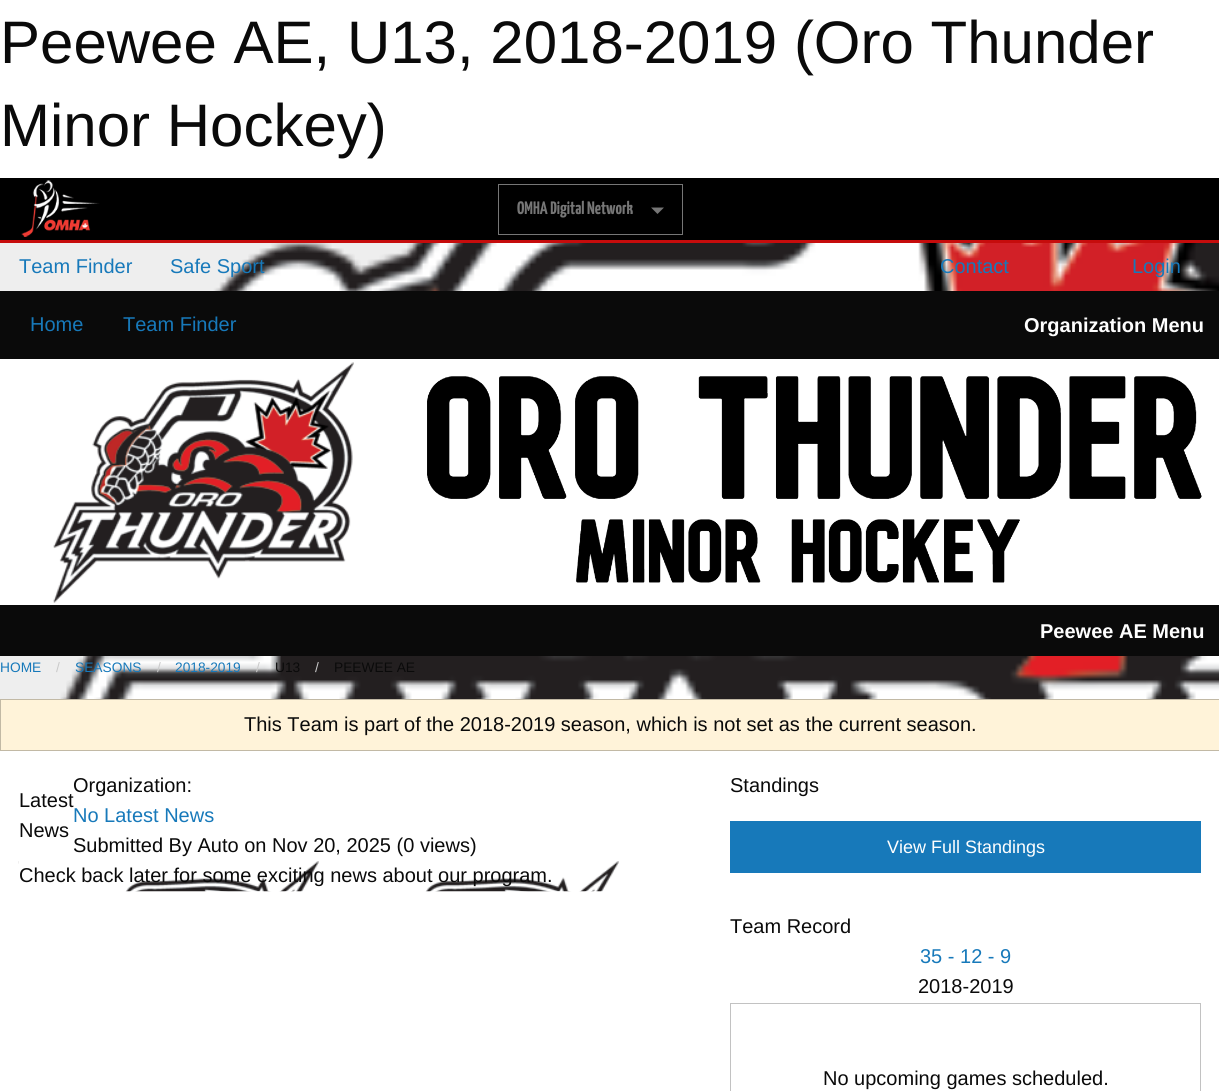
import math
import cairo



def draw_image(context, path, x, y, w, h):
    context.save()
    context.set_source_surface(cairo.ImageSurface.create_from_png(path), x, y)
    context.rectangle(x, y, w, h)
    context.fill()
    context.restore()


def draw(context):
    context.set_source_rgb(1, 1, 1)
    context.paint()
    context.set_source_rgb(0, 0, 0)
    context.rectangle(0, 178, 1219, 62)
    context.fill()
    context.set_source_rgb(198 / 255, 12 / 255, 12 / 255)
    context.rectangle(0, 240, 1219, 3)
    context.fill()
    draw_image(context, "images/1.png", 21, 180, 79, 57)
    context.rectangle(498.5, 184.5, 184, 50)
    context.set_source_rgb(118 / 255, 118 / 255, 118 / 255)
    context.set_line_width(1)
    context.stroke()
    context.new_path()
    context.move_to(651, 207.5)
    context.line_to(664, 207.5)
    context.line_to(657.5, 214)
    context.close_path()
    context.fill()
    context.set_source_rgb(238 / 255, 238 / 255, 238 / 255)
    context.rectangle(0, 243, 423, 456)
    context.fill()
    draw_image(context, "images/2.png", 60, 243, 1159, 456)
    context.set_source_rgb(10 / 255, 10 / 255, 10 / 255)
    context.rectangle(0, 291, 1219, 68)
    context.fill()
    context.set_source_rgb(1, 1, 1)
    context.rectangle(0, 359, 1219, 246)
    context.fill()
    draw_image(context, "images/3.png", 53, 362, 301, 241)
    draw_image(context, "images/4.png", 427, 376, 775, 207)
    context.set_source_rgb(10 / 255, 10 / 255, 10 / 255)
    context.rectangle(0, 605, 1219, 51)
    context.fill()
    context.set_source_rgb(1, 243 / 255, 217 / 255)
    context.rectangle(0.5, 699.5, 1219, 51)
    context.fill_preserve()
    context.set_source_rgb(194 / 255, 185 / 255, 165 / 255)
    context.stroke()
    draw_image(context, "images/5.png", 18, 861, 601, 31)
    context.set_source_rgb(23 / 255, 121 / 255, 186 / 255)
    context.rectangle(730, 821, 471, 52)
    context.fill()
    context.rectangle(730.5, 1003.5, 470, 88)
    context.set_source_rgb(194 / 255, 194 / 255, 194 / 255)
    context.stroke()
    context.select_font_face("Liberation Sans")
    context.set_font_size(60)
    context.set_source_rgb(10 / 255, 10 / 255, 10 / 255)
    context.move_to(0, 63)
    context.show_text("Peewee AE, U13, 2018-2019 (Oro Thunder")
    context.move_to(0, 146)
    context.show_text("Minor Hockey)")
    context.select_font_face("Yanone Kaffeesatz ExtraLight")
    context.set_font_size(18)
    context.set_source_rgb(118 / 255, 118 / 255, 118 / 255)
    context.move_to(517, 214)
    context.show_text("OMHA Digital Network")
    context.select_font_face("Liberation Sans")
    context.set_font_size(20)
    context.set_source_rgb(23 / 255, 121 / 255, 186 / 255)
    context.move_to(19, 273)
    context.show_text("Team Finder")
    context.move_to(170, 273)
    context.show_text("Safe Sport")
    context.move_to(940, 273)
    context.show_text("Contact")
    context.move_to(1132, 273)
    context.show_text("Login")
    context.move_to(30, 331)
    context.show_text("Home")
    context.move_to(123, 331)
    context.show_text("Team Finder")
    context.select_font_face("Liberation Sans", cairo.FontSlant.NORMAL, cairo.FontWeight.BOLD)
    context.set_source_rgb(254 / 255, 254 / 255, 254 / 255)
    context.move_to(1024, 332)
    context.show_text("Organization Menu")
    context.move_to(1040, 638)
    context.show_text("Peewee AE Menu")
    context.select_font_face("Liberation Sans")
    context.set_font_size(13.75)
    context.set_source_rgb(23 / 255, 121 / 255, 186 / 255)
    context.move_to(0, 672)
    context.show_text("HOME")
    context.set_source_rgb(202 / 255, 202 / 255, 202 / 255)
    context.move_to(56, 672)
    context.show_text("/")
    context.set_source_rgb(23 / 255, 121 / 255, 186 / 255)
    context.move_to(75, 672)
    context.show_text("SEASONS")
    context.set_source_rgb(202 / 255, 202 / 255, 202 / 255)
    context.move_to(157, 672)
    context.show_text("/")
    context.set_source_rgb(23 / 255, 121 / 255, 186 / 255)
    context.move_to(175, 672)
    context.show_text("2018-2019")
    context.set_source_rgb(202 / 255, 202 / 255, 202 / 255)
    context.move_to(256, 672)
    context.show_text("/")
    context.set_source_rgb(10 / 255, 10 / 255, 10 / 255)
    context.move_to(275, 672)
    context.show_text("U13")
    context.set_source_rgb(202 / 255, 202 / 255, 202 / 255)
    context.move_to(315, 672)
    context.show_text("/")
    context.set_source_rgb(10 / 255, 10 / 255, 10 / 255)
    context.move_to(334, 672)
    context.show_text("PEEWEE AE")
    context.set_font_size(20)
    context.move_to(244, 731)
    context.show_text("This Team is part of the 2018-2019 season, which is not set as the current season.")
    context.move_to(19, 807)
    context.show_text("Latest")
    context.move_to(19, 837)
    context.show_text("News")
    context.move_to(73, 792)
    context.show_text("Organization:")
    context.set_source_rgb(23 / 255, 121 / 255, 186 / 255)
    context.move_to(73, 822)
    context.show_text("No Latest News")
    context.set_source_rgb(10 / 255, 10 / 255, 10 / 255)
    context.move_to(73, 852)
    context.show_text("Submitted By Auto on Nov 20, 2025 (0 views)")
    context.move_to(19, 882)
    context.show_text("Check back later for some exciting news about our program.")
    context.move_to(730, 792)
    context.show_text("Standings")
    context.set_font_size(18)
    context.set_source_rgb(254 / 255, 254 / 255, 254 / 255)
    context.move_to(887, 853)
    context.show_text("View Full Standings")
    context.set_font_size(20)
    context.set_source_rgb(10 / 255, 10 / 255, 10 / 255)
    context.move_to(730, 933)
    context.show_text("Team Record")
    context.set_source_rgb(23 / 255, 121 / 255, 186 / 255)
    context.move_to(920, 963)
    context.show_text("35 - 12 - 9")
    context.set_source_rgb(10 / 255, 10 / 255, 10 / 255)
    context.move_to(918, 993)
    context.show_text("2018-2019")
    context.move_to(823, 1085)
    context.show_text("No upcoming games scheduled.")


surface = cairo.ImageSurface(cairo.Format.RGB24, 1219, 1091)
context = cairo.Context(surface)
options = cairo.FontOptions()
options.set_hint_metrics(cairo.HintMetrics.OFF)
options.set_hint_style(cairo.HintStyle.NONE)
context.set_font_options(options)
context.set_miter_limit(4)
draw(context)
surface.write_to_png("out.png")
